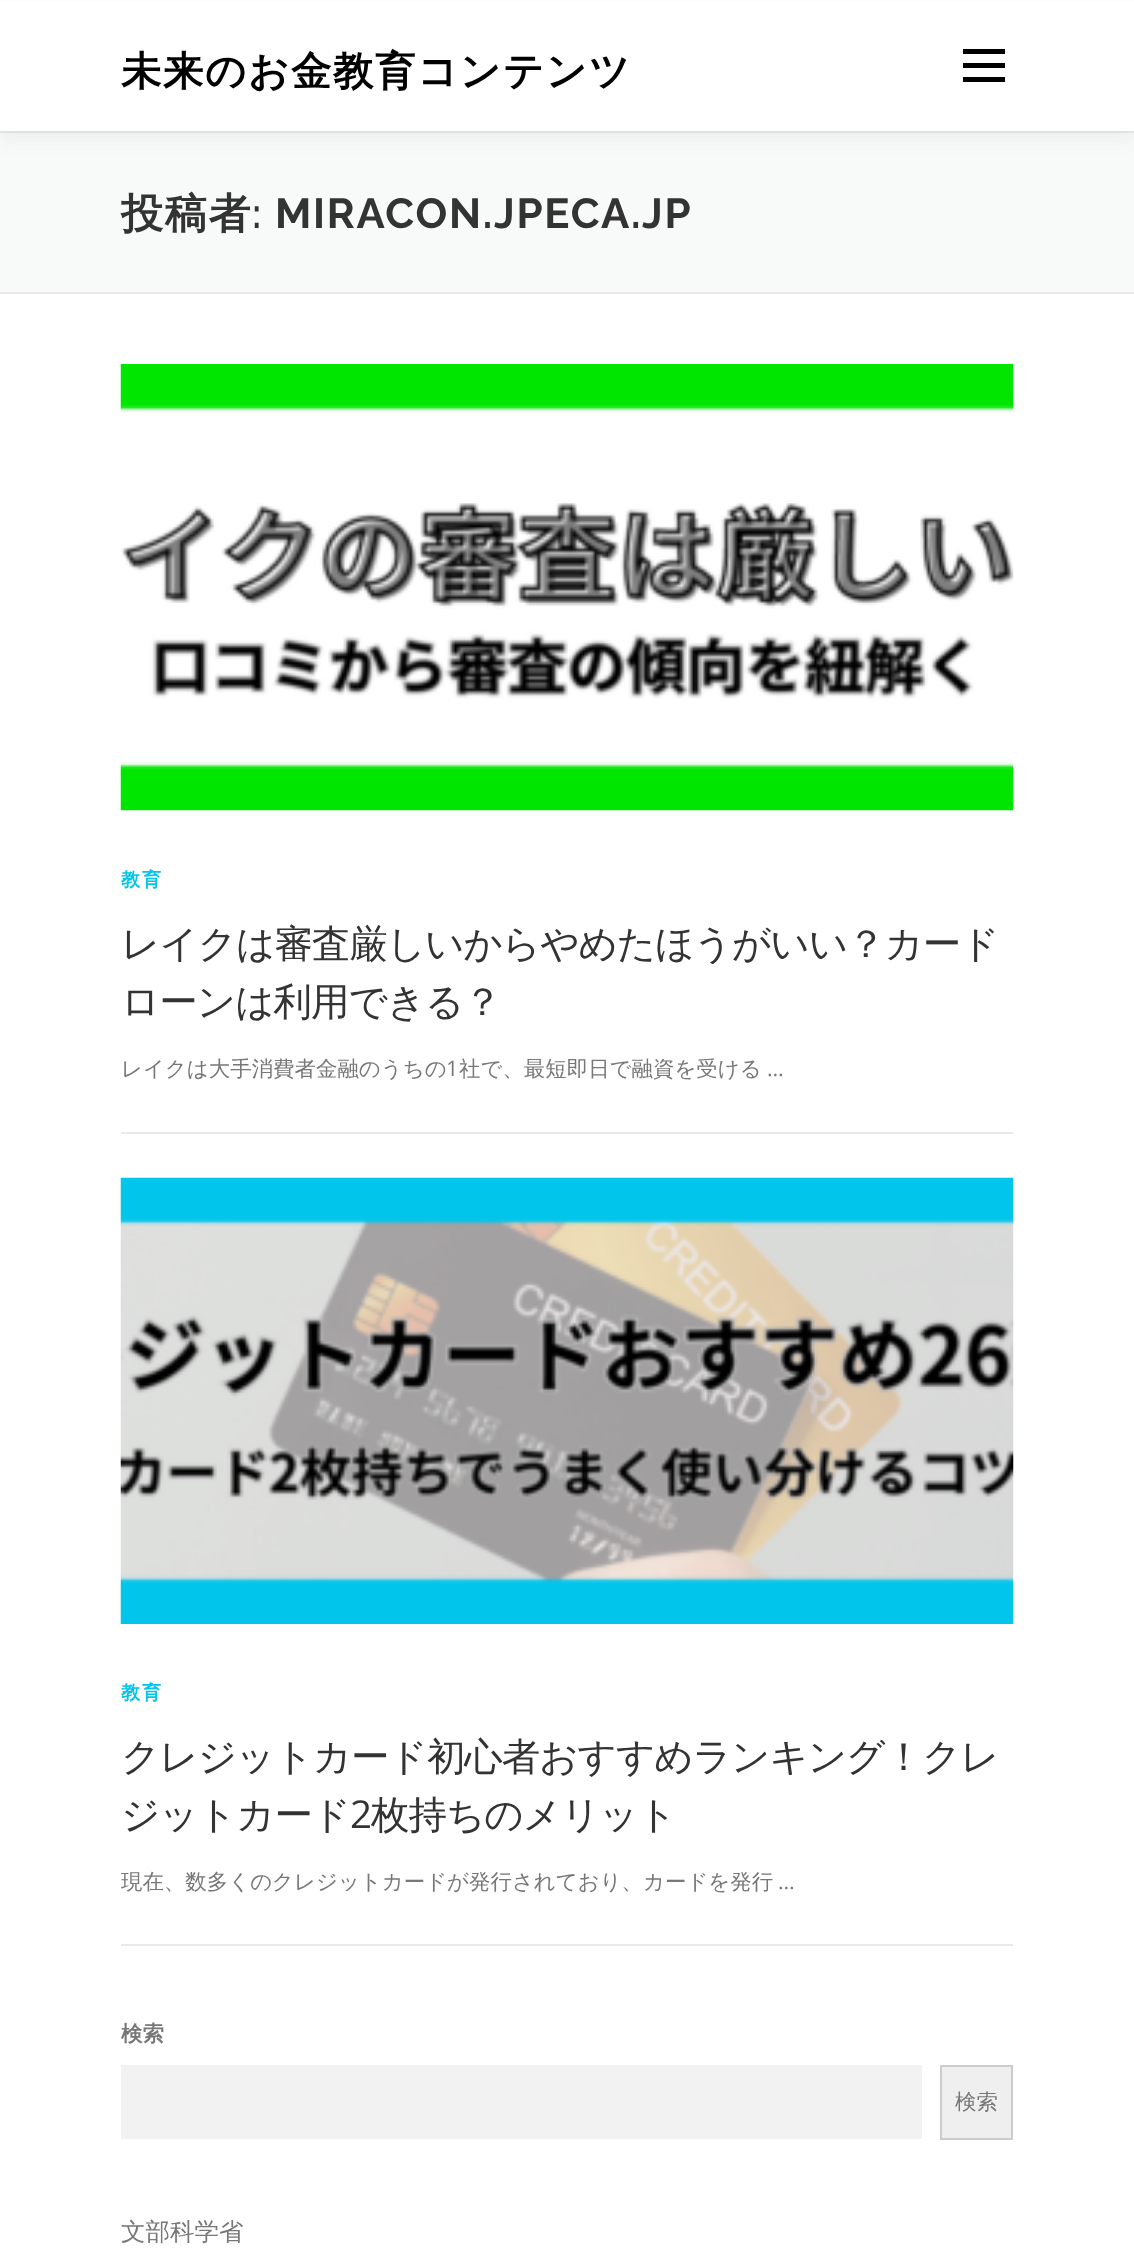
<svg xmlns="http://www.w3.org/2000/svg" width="1134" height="2250">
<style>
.a{font:bold 40.25px WenQuanYi Zen Hei;letter-spacing:1.75px;fill:#000}
.b{font:bold 42px WenQuanYi Zen Hei;letter-spacing:1.75px;fill:#333}
.c{font:600 42px Raleway;letter-spacing:1.75px;fill:#333}
.d{font:bold 42px Raleway;letter-spacing:1.75px;fill:#333}
.e{font:bold 19px WenQuanYi Zen Hei;letter-spacing:2px;fill:#03c4eb}
.f{font:500 38.5px WenQuanYi Zen Hei;letter-spacing:-1.05px;fill:#333}
.g{font:500 21.45px WenQuanYi Zen Hei;fill:#777}
.h{font:21.45px Open Sans;fill:#777}
.i{font:38.5px Open Sans;letter-spacing:-1.05px;fill:#333}
.j{font:bold 21.45px WenQuanYi Zen Hei;fill:#777}
.k{font:500 24.5px WenQuanYi Zen Hei;fill:#777}
</style>
<rect width="100%" height="100%" fill="#fff"/>
<path fill="#f8f9f9" d="M0 133h1134v159H0z"/>
<path fill="#e9e9e9" d="M0 131h1134v2H0z"/>
<path fill="#3232320f" filter="blur(9px)" d="M0 9h1134v131H0z"/>
<path fill="#fff" d="M0 2h1134v129H0z"/>
<path fill="#000" d="M963 63h42v5H963z"/>
<path fill="#000" d="M963 49h42v5H963z"/>
<path fill="#000" d="M963 77h42v5H963z"/>
<path fill="#e9e9e9" d="M0 292h1134v2H0z"/>
<image href="1.png" x="120" y="364" width="894" height="447"/>
<path fill="#e9e9e9" d="M121 1132h892v2H121z"/>
<path fill="#e9e9e9" d="M121 1944h892v2H121z"/>
<image href="2.png" x="120" y="1177" width="894" height="447"/>
<path fill="#f2f2f2" d="M121 2065h801v74H121z"/>
<path fill="#efefef" stroke="#ccc" stroke-width="2" d="M941 2066h71v73H941z"/>
<text class="a" x="121" y="85">未来のお金教育コンテンツ</text>
<text class="b" x="121" y="228">投稿者</text>
<text class="c" x="252" y="228">:</text>
<text class="d" x="275" y="228">MIRACON.JPECA.JP</text>
<text class="e" x="121" y="886">教育</text>
<text class="f" x="121" y="957">レイクは審査厳しいからやめたほうがいい？カード</text>
<text class="f" x="121" y="1015">ローンは利用できる？</text>
<text class="g" x="121" y="1076">レイクは大手消費者金融のうちの</text>
<text class="h" x="446" y="1076">1</text>
<text class="g" x="459" y="1076">社で、最短即日で融資を受ける</text>
<text class="h" x="767" y="1076">…</text>
<text class="e" x="121" y="1699">教育</text>
<text class="f" x="121" y="1770">クレジットカード初心者おすすめランキング！クレ</text>
<text class="f" x="121" y="1828">ジットカード</text>
<text class="i" x="350" y="1828">2</text>
<text class="f" x="371" y="1828">枚持ちのメリット</text>
<text class="g" x="121" y="1889">現在、数多くのクレジットカードが発行されており、カードを発行</text>
<text class="h" x="778" y="1889">…</text>
<text class="j" x="121" y="2041">検索</text>
<text class="g" x="955" y="2109">検索</text>
<text class="k" x="121" y="2240">文部科学省</text>
</svg>
